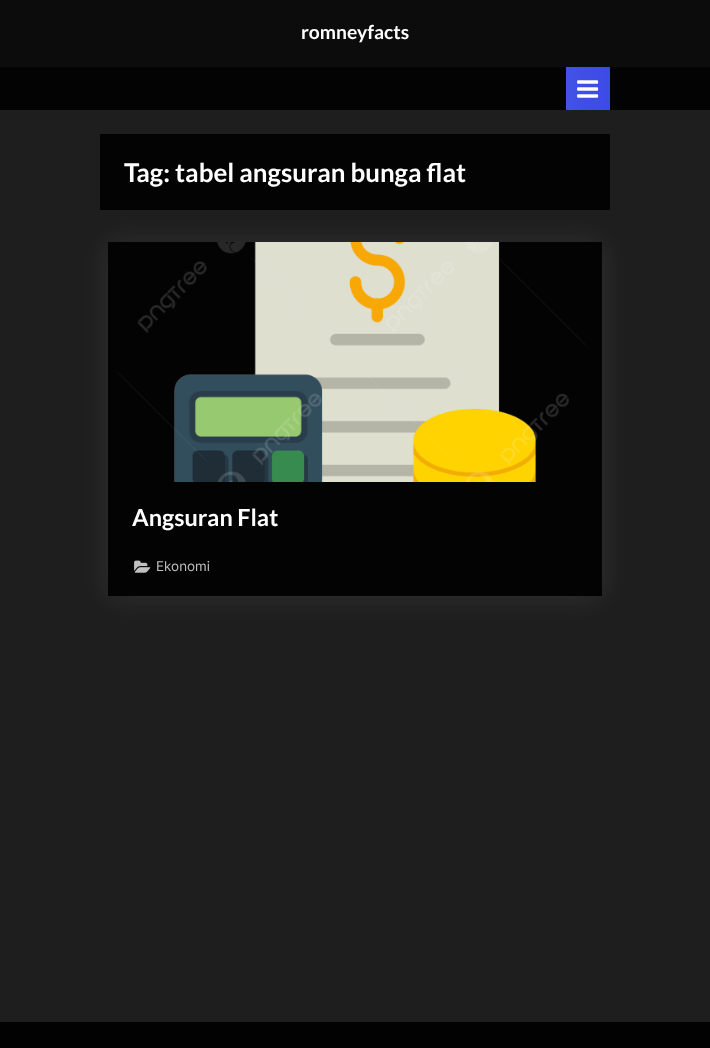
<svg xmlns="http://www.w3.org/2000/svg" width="710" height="1048">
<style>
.a{font:bold 19.25px Lato;fill:#fff}
.b{font:bold 25.9px Lato;fill:#fff}
.c{font:bold 23.5px Lato;fill:#fff}
.d{font:13.5px Inter;fill:#c0c0c0}
</style>
<defs>
<linearGradient id="g1" gradientUnits="userSpaceOnUse" x1="488" y1="89" x2="568" y2="89"><stop offset="0" stop-color="#4252e6"/><stop offset="0.51" stop-color="#3b4be5"/><stop offset="1" stop-color="#4252e6"/></linearGradient>
<linearGradient id="g2" gradientUnits="userSpaceOnUse" x1="568" y1="89" x2="648" y2="89"><stop offset="0" stop-color="#4252e6"/><stop offset="0.51" stop-color="#3b4be5"/><stop offset="1" stop-color="#4252e6"/></linearGradient>
</defs>
<rect width="100%" height="100%" fill="#1e1e1e"/>
<path fill="#0c0c0c" d="M0 0h710v67H0z"/>
<path fill="#030303" d="M0 67h710v43H0z"/>
<path fill="url(#g1)" d="M566 67h2v43H566z"/>
<path fill="url(#g2)" d="M568 67h42v43H568z"/>
<image href="1.png" x="577" y="80" width="22" height="18"/>
<path fill="#030303" d="M100 134h510v76H100z"/>
<path fill="#ffffff17" filter="blur(15px)" d="M108 243h494v354H108z"/>
<path fill="#030303" d="M108 242h494v354H108z"/>
<image href="2.png" x="116" y="242" width="473" height="240"/>
<image href="3.png" x="134" y="560" width="17" height="13"/>
<path fill="#020202" d="M0 1022h710v26H0z"/>
<text class="a" x="301" y="39">romneyfacts</text>
<text class="b" x="124" y="182">Tag: tabel angsuran bunga flat</text>
<text class="c" x="132" y="526">Angsuran Flat</text>
<text class="d" x="156" y="571">Ekonomi</text>
</svg>
